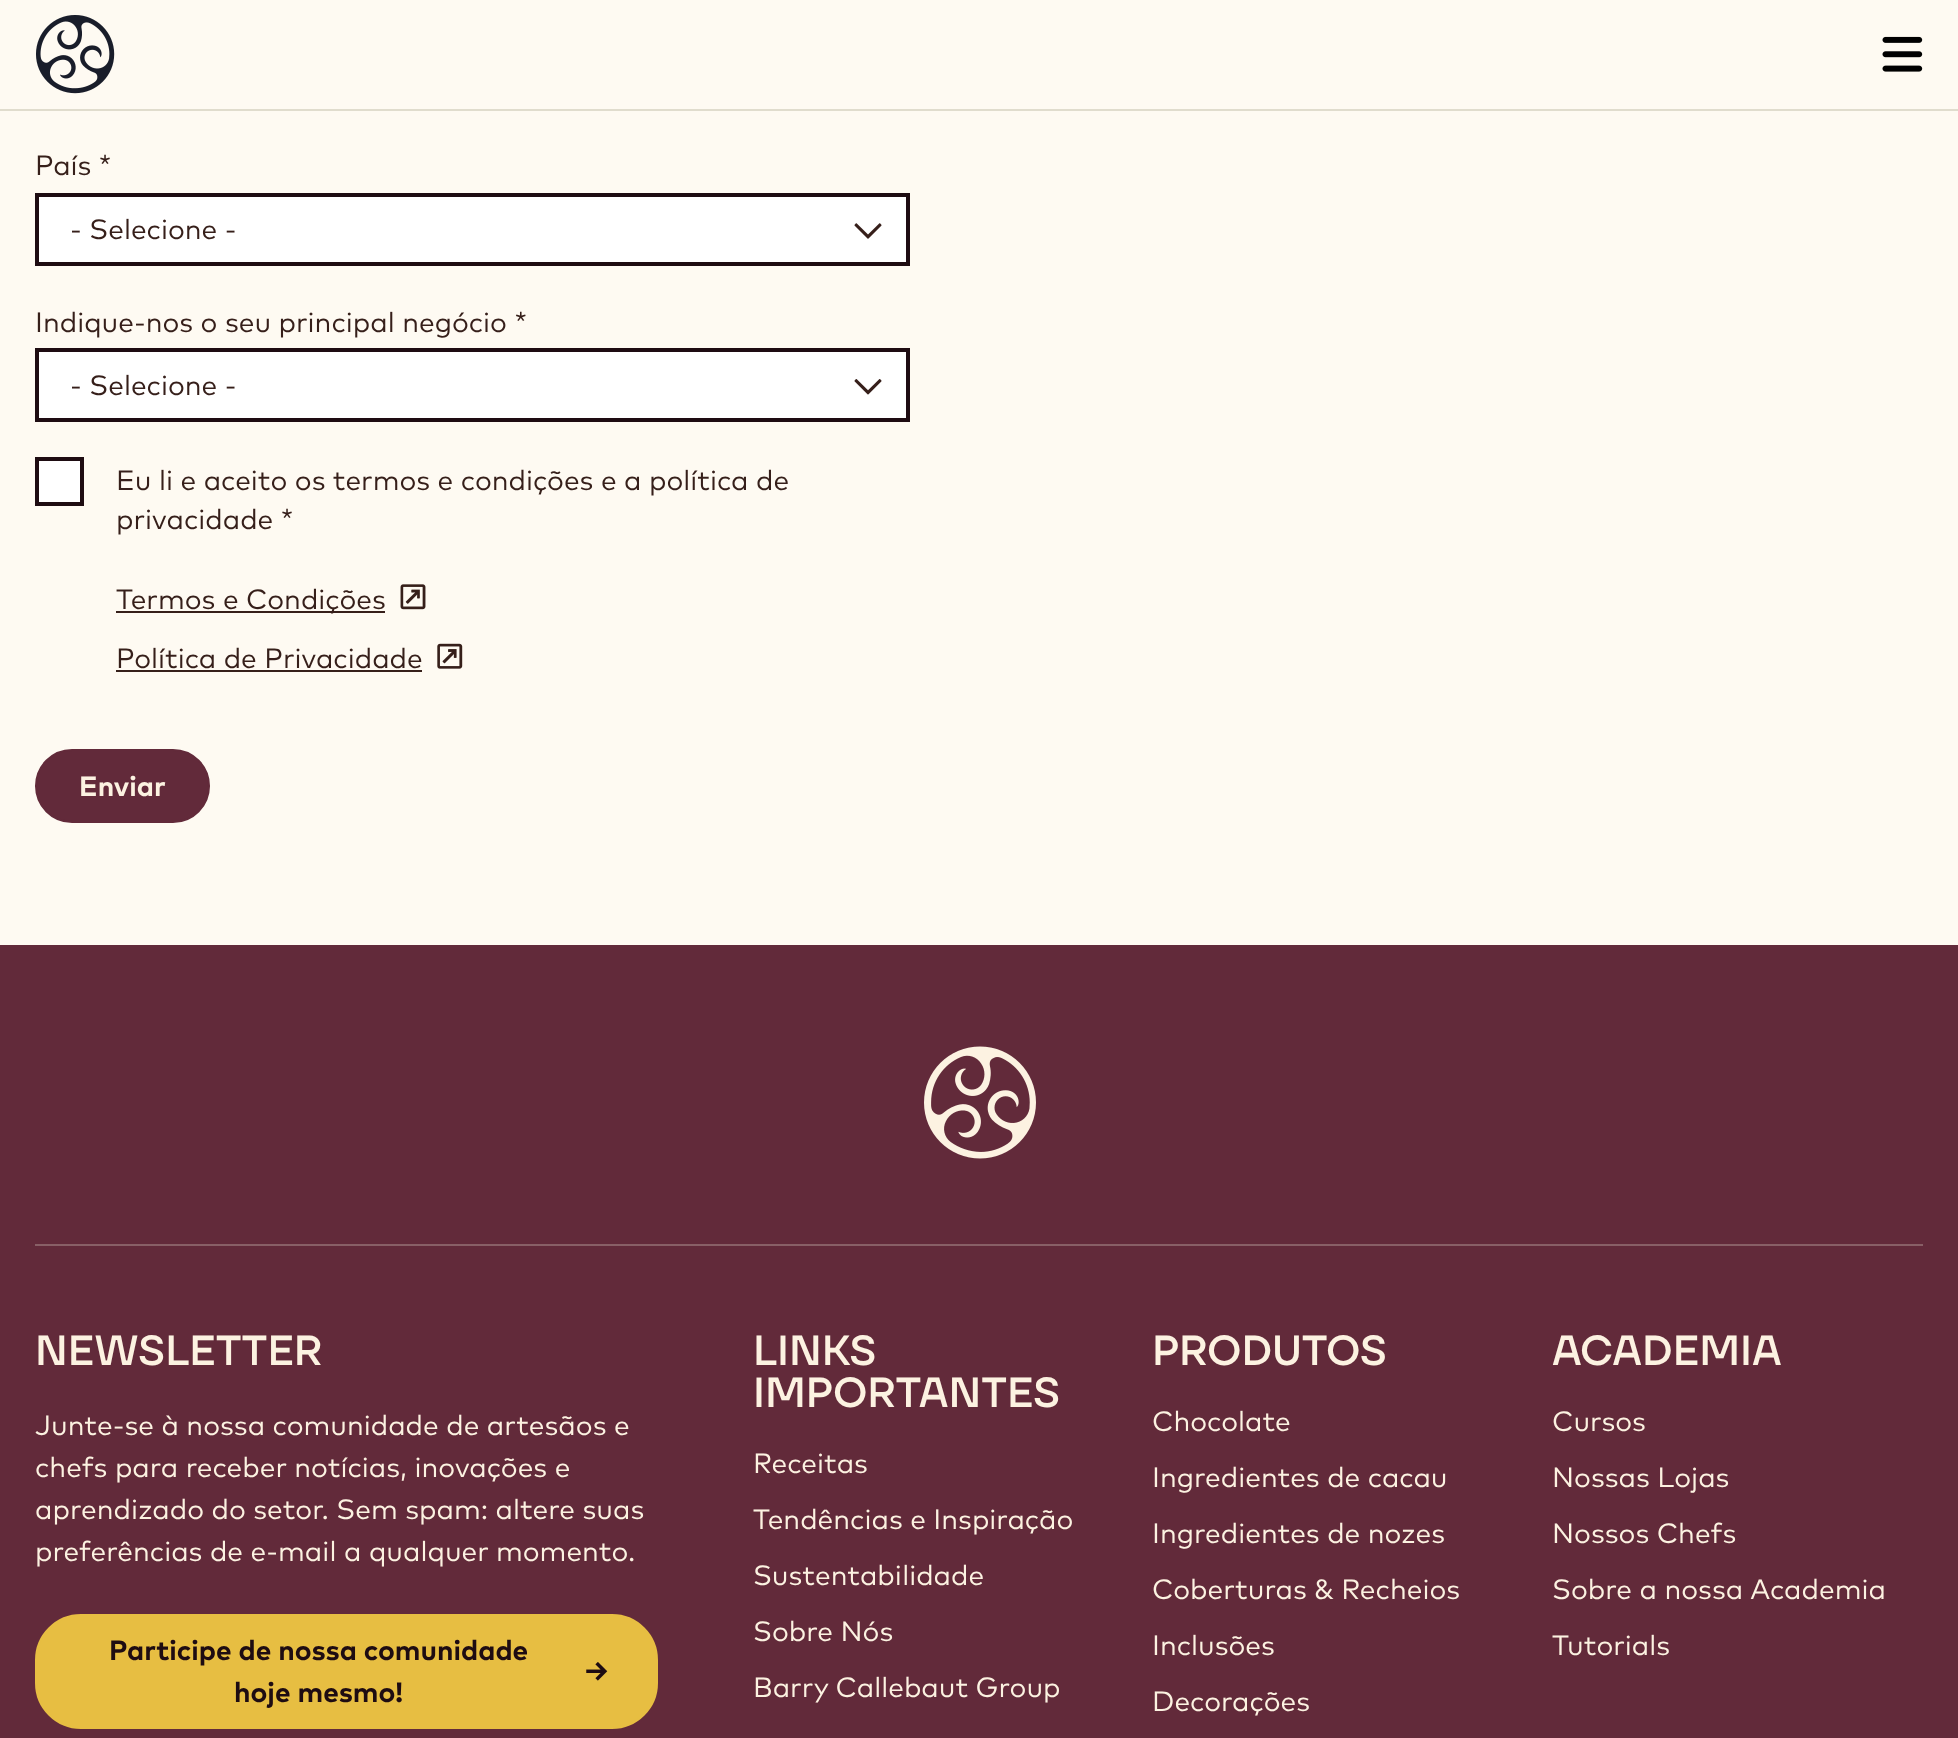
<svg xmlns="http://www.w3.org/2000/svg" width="1958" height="1738">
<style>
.a{font:28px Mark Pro;fill:#361f1a}
.b{font:bold 28px Mark Pro;fill:#fcf2e1}
.c{font:500 42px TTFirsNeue;fill:#fcf2e1}
.d{font:28px Mark Pro;fill:#fcf2e1}
.e{font:bold 28px Mark Pro;fill:#1e0c12}
</style>
<rect width="100%" height="100%" fill="#fefaf2"/>
<path fill="#e0dccd" d="M0 109h1958v2H0z"/>
<image href="1.png" x="36" y="15" width="79" height="79"/>
<image href="2.png" x="1882" y="36" width="41" height="36"/>
<path fill="#fff" stroke="#1e0c12" stroke-width="4" d="M37 195h871v69H37z"/>
<image href="3.png" x="854" y="223" width="28" height="16"/>
<path fill="#fff" stroke="#1e0c12" stroke-width="4" d="M37 350h871v70H37z"/>
<image href="4.png" x="854" y="379" width="28" height="16"/>
<path fill="#fff" stroke="#1e0c12" stroke-width="4" d="M37 459h45v45H37z"/>
<path fill="#361f1a" d="M116 611h269v2H116z"/>
<image href="5.png" x="400" y="584" width="26" height="26"/>
<path fill="#361f1a" d="M116 670h306v2H116z"/>
<image href="6.png" x="437" y="643" width="26" height="26"/>
<rect fill="#622a3a" stroke="#622a3a" stroke-width="2" x="36" y="750" width="173" height="72" rx="36"/>
<path fill="#622a3a" d="M0 945h1958v793H0z"/>
<image href="7.png" x="924" y="1046" width="112" height="113"/>
<path fill="#885f66" d="M35 1244h1888v2H35z"/>
<rect fill="#e7be42" stroke="#e7be42" stroke-width="2" x="36" y="1615" width="621" height="113" rx="45"/>
<image href="8.png" x="586" y="1662" width="22" height="19"/>
<text class="a" x="35" y="175">País *</text>
<text class="a" x="70" y="239">- Selecione -</text>
<text class="a" x="35" y="332">Indique-nos o seu principal negócio *</text>
<text class="a" x="70" y="395">- Selecione -</text>
<text class="a" x="116" y="490">Eu li e aceito os termos e condições e a política de</text>
<text class="a" x="116" y="529">privacidade *</text>
<text class="a" x="116" y="609">Termos e Condições</text>
<text class="a" x="116" y="668">Política de Privacidade</text>
<text class="b" x="79" y="796">Enviar</text>
<text class="c" x="35" y="1365">NEWSLETTER</text>
<text class="d" x="35" y="1435">Junte-se à nossa comunidade de artesãos e</text>
<text class="d" x="35" y="1477">chefs para receber notícias, inovações e</text>
<text class="d" x="35" y="1519">aprendizado do setor. Sem spam: altere suas</text>
<text class="d" x="35" y="1561">preferências de e-mail a qualquer momento.</text>
<text class="e" x="109" y="1660">Participe de nossa comunidade</text>
<text class="e" x="234" y="1702">hoje mesmo!</text>
<text class="c" x="753" y="1365">LINKS</text>
<text class="c" x="753" y="1407">IMPORTANTES</text>
<text class="d" x="753" y="1473">Receitas</text>
<text class="d" x="753" y="1529">Tendências e Inspiração</text>
<text class="d" x="753" y="1585">Sustentabilidade</text>
<text class="d" x="753" y="1641">Sobre Nós</text>
<text class="d" x="753" y="1697">Barry Callebaut Group</text>
<text class="c" x="1152" y="1365">PRODUTOS</text>
<text class="d" x="1152" y="1431">Chocolate</text>
<text class="d" x="1152" y="1487">Ingredientes de cacau</text>
<text class="d" x="1152" y="1543">Ingredientes de nozes</text>
<text class="d" x="1152" y="1599">Coberturas &amp; Recheios</text>
<text class="d" x="1152" y="1655">Inclusões</text>
<text class="d" x="1152" y="1711">Decorações</text>
<text class="c" x="1552" y="1365">ACADEMIA</text>
<text class="d" x="1552" y="1431">Cursos</text>
<text class="d" x="1552" y="1487">Nossas Lojas</text>
<text class="d" x="1552" y="1543">Nossos Chefs</text>
<text class="d" x="1552" y="1599">Sobre a nossa Academia</text>
<text class="d" x="1552" y="1655">Tutorials</text>
</svg>
